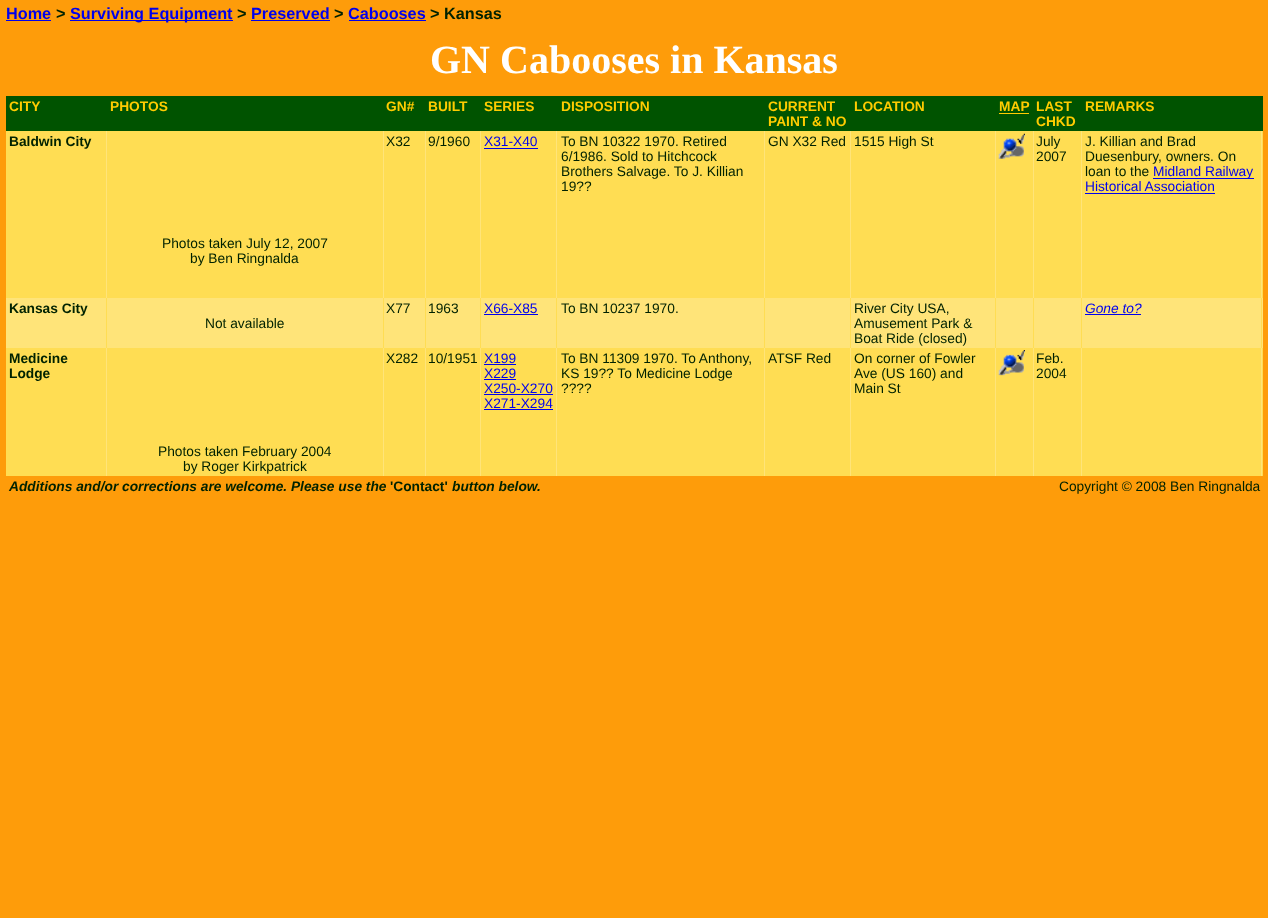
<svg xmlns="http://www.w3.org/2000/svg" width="1268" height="918">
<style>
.a{font:bold 16.25px Liberation Sans;fill:#00e}
.b{font:bold 16.25px Liberation Sans;fill:#020}
.c{font:bold 40px Liberation Serif;fill:#fff}
.d{font:bold 13.75px Liberation Sans;fill:#fc0}
.e{font:bold 13.75px Liberation Sans;fill:#020}
.f{font:13.75px Liberation Sans;fill:#020}
.g{font:13.75px Liberation Sans;fill:#00e}
.h{font:italic 13.75px Liberation Sans;fill:#00e}
.i{font:italic bold 13.75px Liberation Sans;fill:#020}
</style>
<rect width="100%" height="100%" fill="#fe9c0a"/>
<path fill="#00e" d="M6 20h45v1H6z"/>
<path fill="#00e" d="M70 20h163v1H70z"/>
<path fill="#00e" d="M251 20h79v1H251z"/>
<path fill="#00e" d="M349 20h77v1H349z"/>
<path fill="#005300" d="M6 96h1257v35H6z"/>
<path fill="#fc0" d="M999 113h30v1H999z"/>
<path fill="#ffdd53" d="M6 131h102v167H6z"/>
<path fill="#ffe479" d="M106 131h1v167H106z"/>
<path fill="#ffdd53" d="M108 131h275v167H108z"/>
<path fill="#ffe479" d="M383 131h1v167H383z"/>
<path fill="#ffdd53" d="M384 131h41v167H384z"/>
<path fill="#ffe479" d="M425 131h1v167H425z"/>
<path fill="#ffdd53" d="M426 131h54v167H426z"/>
<path fill="#ffe479" d="M480 131h1v167H480z"/>
<path fill="#ffdd53" d="M481 131h283v167H481z"/>
<path fill="#ffe479" d="M556 131h1v167H556z"/>
<path fill="#00e" d="M484 148h54v1H484z"/>
<path fill="#ffe479" d="M764 131h1v167H764z"/>
<path fill="#ffdd53" d="M765 131h85v167H765z"/>
<path fill="#ffe479" d="M850 131h1v167H850z"/>
<path fill="#ffdd53" d="M851 131h144v167H851z"/>
<path fill="#ffe479" d="M995 131h1v167H995z"/>
<path fill="#ffdd53" d="M996 131h37v167H996z"/>
<path fill="#ffe479" d="M1033 131h1v167H1033z"/>
<image href="1.png" x="998" y="133" width="27" height="26"/>
<path fill="#ffdd53" d="M1034 131h229v167H1034z"/>
<path fill="#ffe479" d="M1081 131h1v167H1081z"/>
<path fill="#ffe479" d="M1261 131h1v167H1261z"/>
<path fill="#00e" d="M1153 178h101v1H1153z"/>
<path fill="#00e" d="M1085 193h130v1H1085z"/>
<path fill="#ffe479" d="M6 298h377v50H6z"/>
<path fill="#ffdd53" d="M106 298h1v50H106z"/>
<path fill="#ffe479" d="M384 298h41v50H384z"/>
<path fill="#ffdd53" d="M425 298h1v50H425z"/>
<path fill="#ffe479" d="M426 298h54v50H426z"/>
<path fill="#ffdd53" d="M480 298h1v50H480z"/>
<path fill="#ffe479" d="M481 298h283v50H481z"/>
<path fill="#ffdd53" d="M556 298h1v50H556z"/>
<path fill="#00e" d="M484 314h54v1H484z"/>
<path fill="#ffdd53" d="M764 298h1v50H764z"/>
<path fill="#ffe479" d="M765 298h85v50H765z"/>
<path fill="#ffdd53" d="M850 298h1v50H850z"/>
<path fill="#ffe479" d="M851 298h144v50H851z"/>
<path fill="#ffdd53" d="M995 298h1v50H995z"/>
<path fill="#ffe479" d="M996 298h37v50H996z"/>
<path fill="#ffdd53" d="M1033 298h1v50H1033z"/>
<path fill="#ffe479" d="M1034 298h229v50H1034z"/>
<path fill="#ffdd53" d="M1081 298h1v50H1081z"/>
<path fill="#ffdd53" d="M1261 298h1v50H1261z"/>
<path fill="#00e" d="M1085 314h56v1H1085z"/>
<path fill="#ffdd53" d="M383 298h1v50H383z"/>
<path fill="#ffdd53" d="M6 348h102v128H6z"/>
<path fill="#ffe479" d="M106 348h1v128H106z"/>
<path fill="#ffdd53" d="M108 348h275v128H108z"/>
<path fill="#ffe479" d="M383 348h1v128H383z"/>
<path fill="#ffdd53" d="M384 348h41v128H384z"/>
<path fill="#ffe479" d="M425 348h1v128H425z"/>
<path fill="#ffdd53" d="M426 348h54v128H426z"/>
<path fill="#ffe479" d="M480 348h1v128H480z"/>
<path fill="#ffdd53" d="M481 348h283v128H481z"/>
<path fill="#ffe479" d="M556 348h1v128H556z"/>
<path fill="#00e" d="M484 364h32v1H484z"/>
<path fill="#00e" d="M484 379h32v1H484z"/>
<path fill="#00e" d="M484 394h69v1H484z"/>
<path fill="#00e" d="M484 409h69v1H484z"/>
<path fill="#ffe479" d="M764 348h1v128H764z"/>
<path fill="#ffdd53" d="M765 348h85v128H765z"/>
<path fill="#ffe479" d="M850 348h1v128H850z"/>
<path fill="#ffdd53" d="M851 348h144v128H851z"/>
<path fill="#ffe479" d="M995 348h1v128H995z"/>
<path fill="#ffdd53" d="M996 348h37v128H996z"/>
<path fill="#ffe479" d="M1033 348h1v128H1033z"/>
<image href="2.png" x="998" y="350" width="27" height="26"/>
<path fill="#ffdd53" d="M1034 348h229v128H1034z"/>
<path fill="#ffe479" d="M1081 348h1v128H1081z"/>
<path fill="#ffe479" d="M1261 348h1v128H1261z"/>
<text class="a" x="6" y="19">Home</text>
<text class="b" x="56" y="19">&gt;</text>
<text class="a" x="70" y="19">Surviving Equipment</text>
<text class="b" x="237" y="19">&gt;</text>
<text class="a" x="251" y="19">Preserved</text>
<text class="b" x="334" y="19">&gt;</text>
<text class="a" x="348" y="19">Cabooses</text>
<text class="b" x="430" y="19">&gt; Kansas</text>
<text class="c" x="430" y="73">GN Cabooses in Kansas</text>
<text class="d" x="9" y="111">CITY</text>
<text class="d" x="110" y="111">PHOTOS</text>
<text class="d" x="386" y="111">GN#</text>
<text class="d" x="428" y="111">BUILT</text>
<text class="d" x="484" y="111">SERIES</text>
<text class="d" x="561" y="111">DISPOSITION</text>
<text class="d" x="768" y="111">CURRENT</text>
<text class="d" x="768" y="126">PAINT &amp; NO</text>
<text class="d" x="854" y="111">LOCATION</text>
<text class="d" x="999" y="111">MAP</text>
<text class="d" x="1036" y="111">LAST</text>
<text class="d" x="1036" y="126">CHKD</text>
<text class="d" x="1085" y="111">REMARKS</text>
<text class="e" x="9" y="146">Baldwin City</text>
<text class="f" x="386" y="146">X32</text>
<text class="f" x="428" y="146">9/1960</text>
<text class="g" x="484" y="146">X31-X40</text>
<text class="f" x="561" y="146">To BN 10322 1970. Retired</text>
<text class="f" x="561" y="161">6/1986. Sold to Hitchcock</text>
<text class="f" x="561" y="176">Brothers Salvage. To J. Killian</text>
<text class="f" x="561" y="191">19??</text>
<text class="f" x="768" y="146">GN X32 Red</text>
<text class="f" x="854" y="146">1515 High St</text>
<text class="f" x="1036" y="146">July</text>
<text class="f" x="1036" y="161">2007</text>
<text class="f" x="1085" y="146">J. Killian and Brad</text>
<text class="f" x="1085" y="161">Duesenbury, owners. On</text>
<text class="f" x="1085" y="176">loan to the</text>
<text class="g" x="1153" y="176">Midland Railway</text>
<text class="g" x="1085" y="191">Historical Association</text>
<text class="f" x="162" y="248">Photos taken July 12, 2007</text>
<text class="f" x="190" y="263">by Ben Ringnalda</text>
<text class="e" x="9" y="313">Kansas City</text>
<text class="f" x="386" y="313">X77</text>
<text class="f" x="428" y="313">1963</text>
<text class="g" x="484" y="313">X66-X85</text>
<text class="f" x="561" y="313">To BN 10237 1970.</text>
<text class="f" x="854" y="313">River City USA,</text>
<text class="f" x="854" y="328">Amusement Park &amp;</text>
<text class="f" x="854" y="343">Boat Ride (closed)</text>
<text class="h" x="1085" y="313">Gone to?</text>
<text class="f" x="205" y="328">Not available</text>
<text class="e" x="9" y="363">Medicine</text>
<text class="e" x="9" y="378">Lodge</text>
<text class="f" x="386" y="363">X282</text>
<text class="f" x="428" y="363">10/1951</text>
<text class="g" x="484" y="363">X199</text>
<text class="g" x="484" y="378">X229</text>
<text class="g" x="484" y="393">X250-X270</text>
<text class="g" x="484" y="408">X271-X294</text>
<text class="f" x="561" y="363">To BN 11309 1970. To Anthony,</text>
<text class="f" x="561" y="378">KS 19?? To Medicine Lodge</text>
<text class="f" x="561" y="393">????</text>
<text class="f" x="768" y="363">ATSF Red</text>
<text class="f" x="854" y="363">On corner of Fowler</text>
<text class="f" x="854" y="378">Ave (US 160) and</text>
<text class="f" x="854" y="393">Main St</text>
<text class="f" x="1036" y="363">Feb.</text>
<text class="f" x="1036" y="378">2004</text>
<text class="f" x="158" y="456">Photos taken February 2004</text>
<text class="f" x="183" y="471">by Roger Kirkpatrick</text>
<text class="i" x="9" y="491">Additions and/or corrections are welcome. Please use the</text>
<text class="e" x="390" y="491">'Contact'</text>
<text class="i" x="452" y="491">button below.</text>
<text class="f" x="1059" y="491">Copyright © 2008 Ben Ringnalda</text>
</svg>
